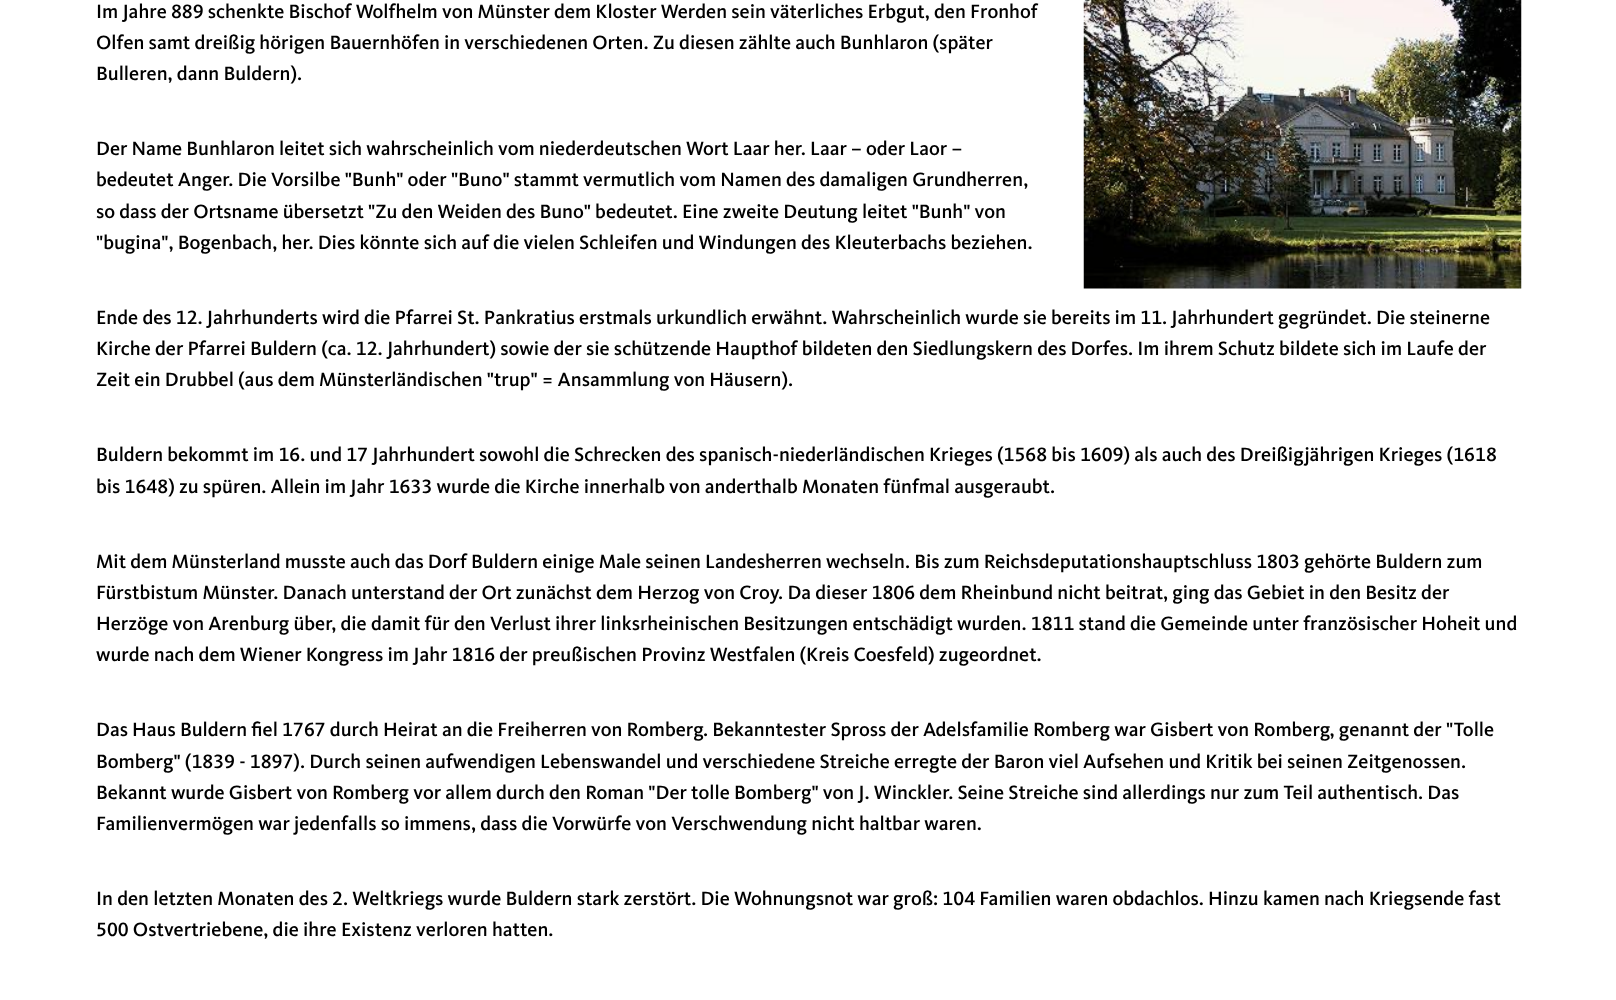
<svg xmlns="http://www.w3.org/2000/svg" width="1616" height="1000">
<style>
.a{font:500 20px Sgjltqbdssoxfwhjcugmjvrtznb;fill:#000}
</style>
<rect width="100%" height="100%" fill="#fff"/>
<image href="1.png" x="1083" y="0" width="439" height="289"/>
<text class="a" x="96" y="18">Im Jahre 889 schenkte Bischof Wolfhelm von Münster dem Kloster Werden sein väterliches Erbgut, den Fronhof</text>
<text class="a" x="96" y="49">Olfen samt dreißig hörigen Bauernhöfen in verschiedenen Orten. Zu diesen zählte auch Bunhlaron (später</text>
<text class="a" x="96" y="80">Bulleren, dann Buldern).</text>
<text class="a" x="96" y="155">Der Name Bunhlaron leitet sich wahrscheinlich vom niederdeutschen Wort Laar her. Laar – oder Laor –</text>
<text class="a" x="96" y="186">bedeutet Anger. Die Vorsilbe "Bunh" oder "Buno" stammt vermutlich vom Namen des damaligen Grundherren,</text>
<text class="a" x="96" y="218">so dass der Ortsname übersetzt "Zu den Weiden des Buno" bedeutet. Eine zweite Deutung leitet "Bunh" von</text>
<text class="a" x="96" y="249">"bugina", Bogenbach, her. Dies könnte sich auf die vielen Schleifen und Windungen des Kleuterbachs beziehen.</text>
<text class="a" x="96" y="324">Ende des 12. Jahrhunderts wird die Pfarrei St. Pankratius erstmals urkundlich erwähnt. Wahrscheinlich wurde sie bereits im 11. Jahrhundert gegründet. Die steinerne</text>
<text class="a" x="96" y="355">Kirche der Pfarrei Buldern (ca. 12. Jahrhundert) sowie der sie schützende Haupthof bildeten den Siedlungskern des Dorfes. Im ihrem Schutz bildete sich im Laufe der</text>
<text class="a" x="96" y="386">Zeit ein Drubbel (aus dem Münsterländischen "trup" = Ansammlung von Häusern).</text>
<text class="a" x="96" y="461">Buldern bekommt im 16. und 17 Jahrhundert sowohl die Schrecken des spanisch-niederländischen Krieges (1568 bis 1609) als auch des Dreißigjährigen Krieges (1618</text>
<text class="a" x="96" y="493">bis 1648) zu spüren. Allein im Jahr 1633 wurde die Kirche innerhalb von anderthalb Monaten fünfmal ausgeraubt.</text>
<text class="a" x="96" y="568">Mit dem Münsterland musste auch das Dorf Buldern einige Male seinen Landesherren wechseln. Bis zum Reichsdeputationshauptschluss 1803 gehörte Buldern zum</text>
<text class="a" x="96" y="599">Fürstbistum Münster. Danach unterstand der Ort zunächst dem Herzog von Croy. Da dieser 1806 dem Rheinbund nicht beitrat, ging das Gebiet in den Besitz der</text>
<text class="a" x="96" y="630">Herzöge von Arenburg über, die damit für den Verlust ihrer linksrheinischen Besitzungen entschädigt wurden. 1811 stand die Gemeinde unter französischer Hoheit und</text>
<text class="a" x="96" y="661">wurde nach dem Wiener Kongress im Jahr 1816 der preußischen Provinz Westfalen (Kreis Coesfeld) zugeordnet.</text>
<text class="a" x="96" y="736">Das Haus Buldern fiel 1767 durch Heirat an die Freiherren von Romberg. Bekanntester Spross der Adelsfamilie Romberg war Gisbert von Romberg, genannt der "Tolle</text>
<text class="a" x="96" y="768">Bomberg" (1839 - 1897). Durch seinen aufwendigen Lebenswandel und verschiedene Streiche erregte der Baron viel Aufsehen und Kritik bei seinen Zeitgenossen.</text>
<text class="a" x="96" y="799">Bekannt wurde Gisbert von Romberg vor allem durch den Roman "Der tolle Bomberg" von J. Winckler. Seine Streiche sind allerdings nur zum Teil authentisch. Das</text>
<text class="a" x="96" y="830">Familienvermögen war jedenfalls so immens, dass die Vorwürfe von Verschwendung nicht haltbar waren.</text>
<text class="a" x="96" y="905">In den letzten Monaten des 2. Weltkriegs wurde Buldern stark zerstört. Die Wohnungsnot war groß: 104 Familien waren obdachlos. Hinzu kamen nach Kriegsende fast</text>
<text class="a" x="96" y="936">500 Ostvertriebene, die ihre Existenz verloren hatten.</text>
</svg>
